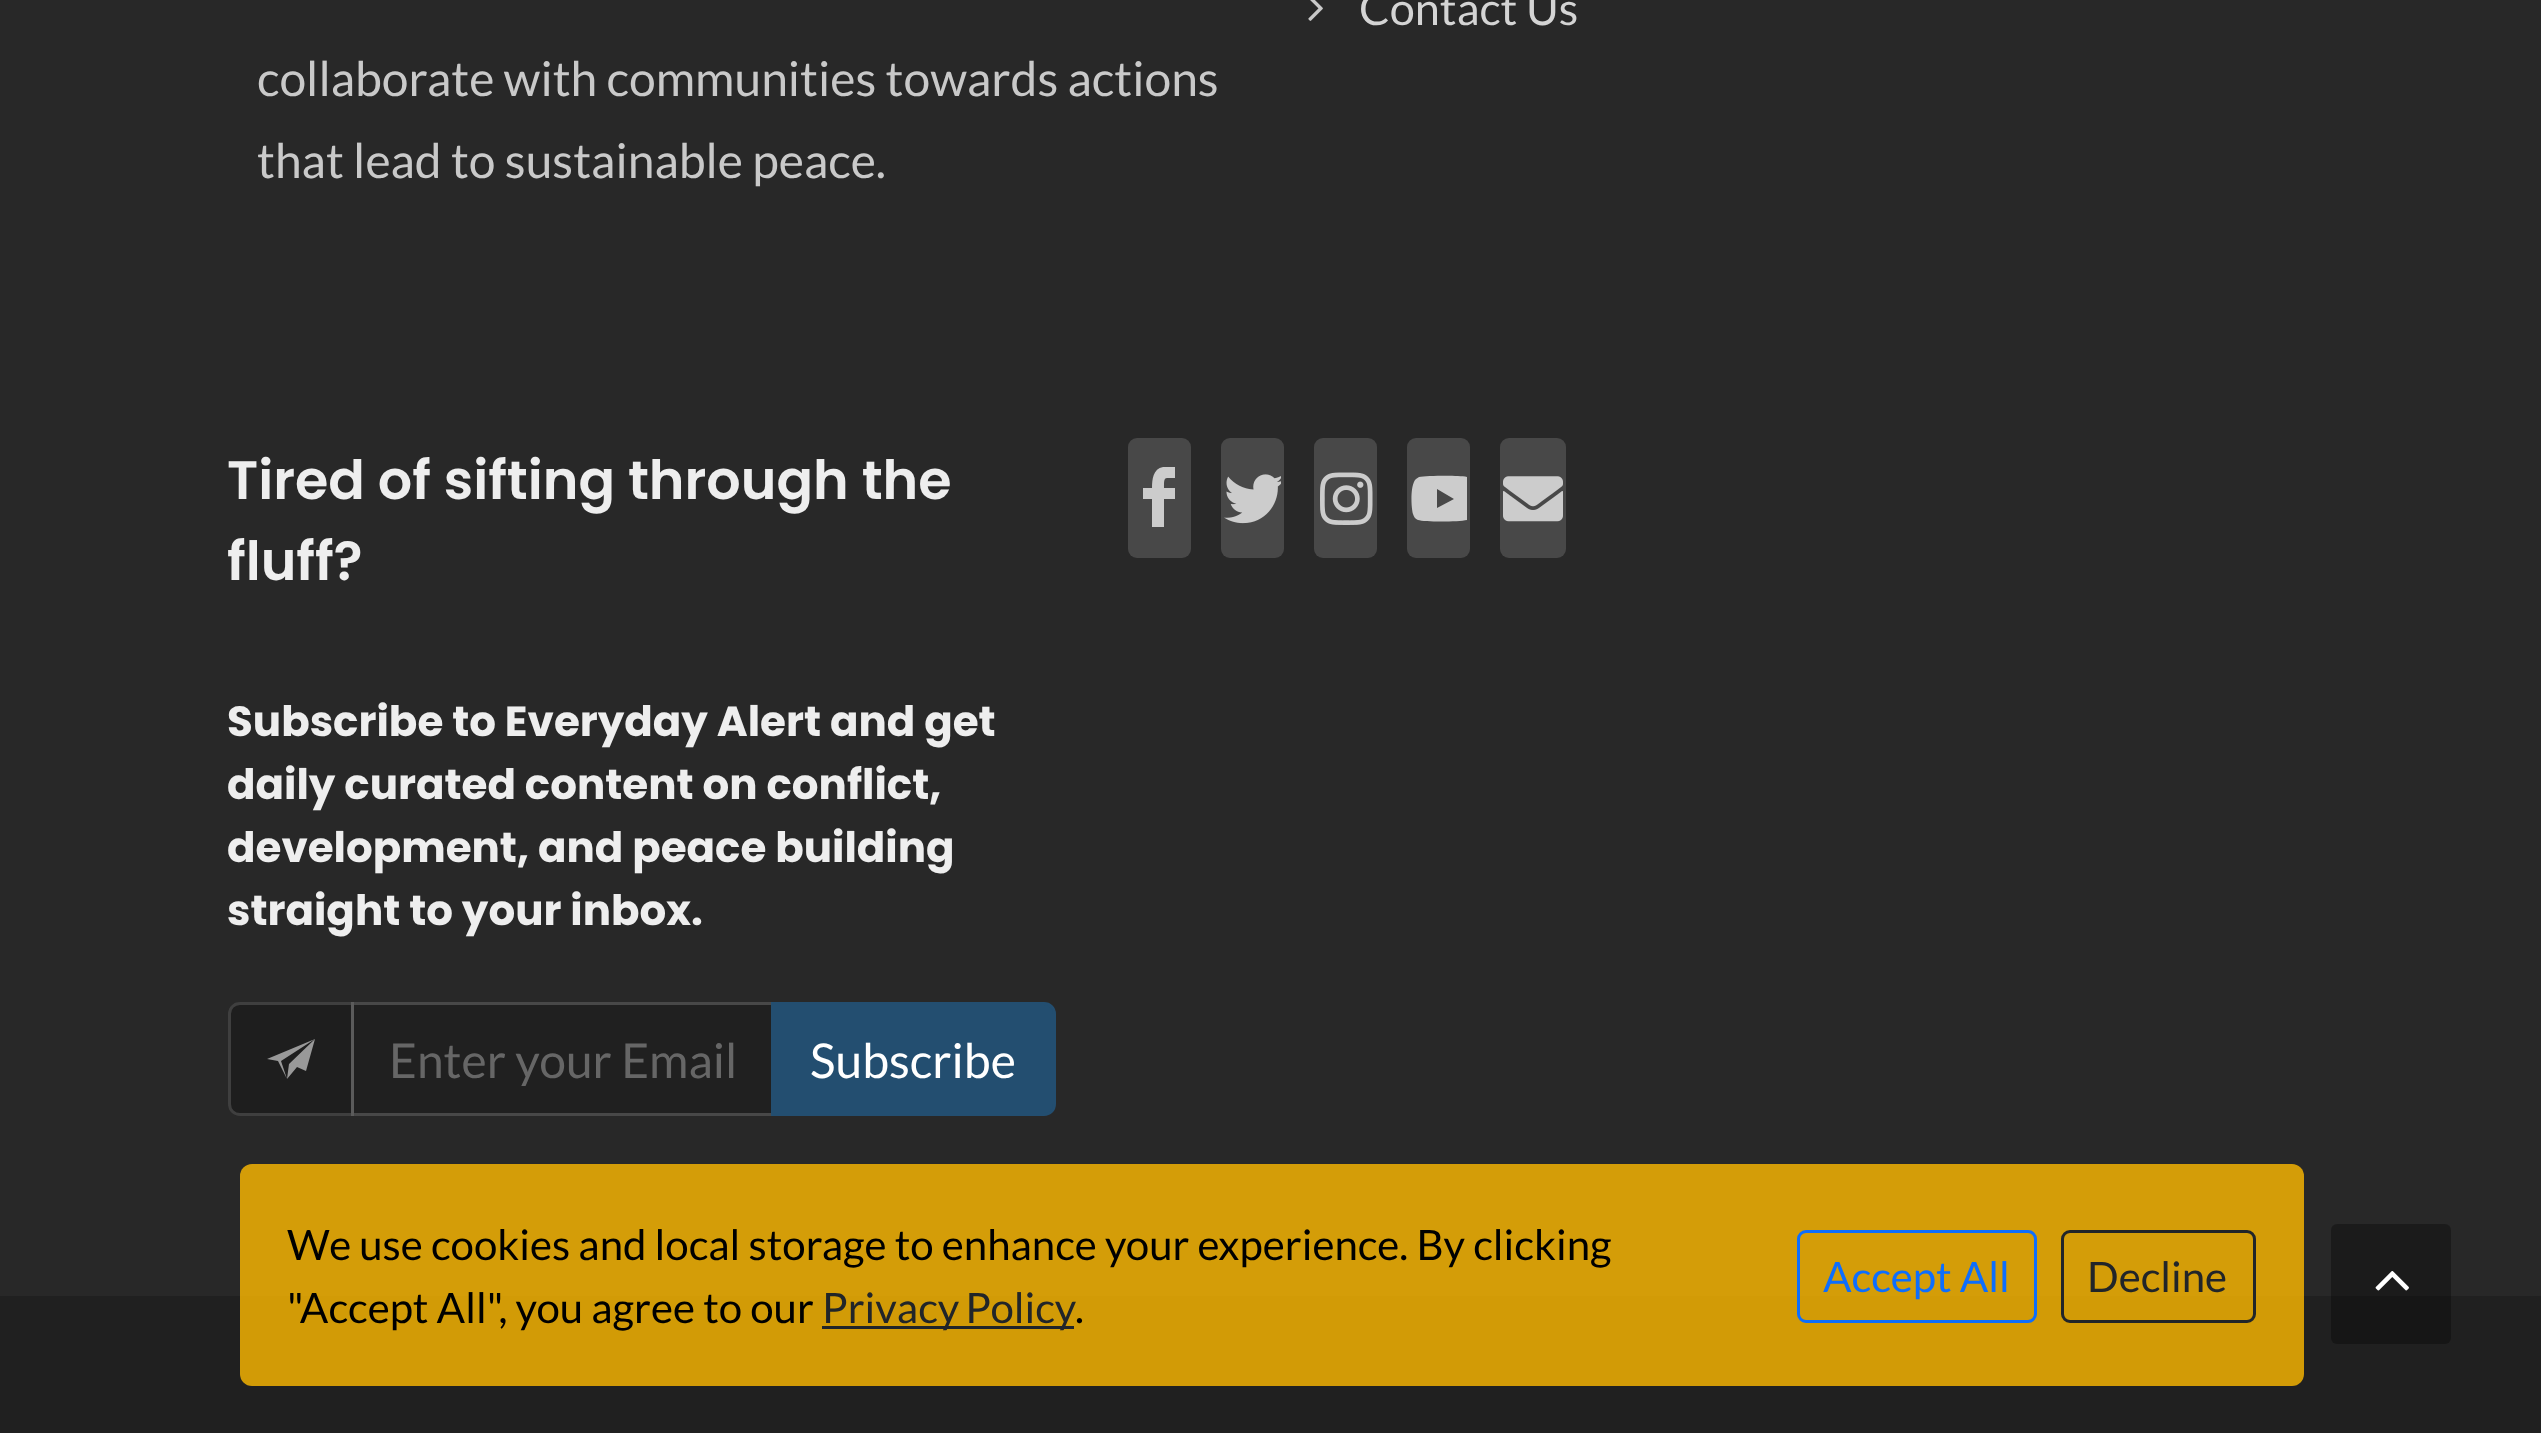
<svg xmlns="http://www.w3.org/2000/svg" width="2541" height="1433">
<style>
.a{font:45px Lato;fill:#d4d4d4}
.b{font:48px Lato;fill:#c9c9c9}
.c{font:600 54px Poppins;fill:#eee}
.d{font:bold 42px Poppins;fill:#eee}
.e{font:48px Lato;fill:#666}
.f{font:48px Lato;fill:#fff}
.g{font:42px Lato;fill:#000}
.h{font:42px Lato;fill:#212529}
.i{font:42px Lato;fill:#0d6efd}
</style>
<defs>
<clipPath id="clip1"><path d="M390 1029h345v57H390z"/></clipPath>
</defs>
<rect width="100%" height="100%" fill="#282828"/>
<image href="1.png" x="1308" y="0" width="15" height="21"/>
<path fill="#1e1e1e" d="M240 1002h114v114h-114c-6.5 0-12-5.5-12-12v-90c0-6.5 5.5-12 12-12z"/>
<path fill="none" stroke="#ffffff26" stroke-width="3" d="M240 1003.5h112.5v111h-112.5c-6 0-10.5-4.5-10.5-10.5v-90c0-6 4.5-10.5 10.5-10.5z"/>
<path fill="#999" d="M289 1064l-2 15l10-12l9 4l9-32zm26-25l-48 20l11 2l9 18l-6-18z"/>
<path fill="#202020" d="M354 1005h417v108H354z"/>
<path fill="none" stroke="#ffffff26" stroke-width="3" d="M352.5 1003.5h420v111H352.5z"/>
<path fill="#234e70" stroke="#234e70" stroke-width="3" d="M772.5 1003.5h271.5c6 0 10.5 4.5 10.5 10.5v90c0 6-4.5 10.5-10.5 10.5h-271.5z"/>
<rect fill="#484848" x="1128" y="438" width="63" height="120" rx="9"/>
<path fill="#ccc" d="M1143 499v-11h9c0-9 1-19 11-21h12v11c-11 0-11-2-11 10h11v11h-11v28h-12v-28z"/>
<rect fill="#484848" x="1221" y="438" width="63" height="120" rx="9"/>
<image href="2.png" x="1224" y="474" width="57" height="50"/>
<rect fill="#484848" x="1314" y="438" width="63" height="120" rx="9"/>
<image href="3.png" x="1320" y="472" width="53" height="53"/>
<rect fill="#484848" x="1407" y="438" width="63" height="120" rx="9"/>
<path fill="#ccc" fill-rule="evenodd" d="M1467 477v43c-9 2-43 2-49 0c-3-1-4-3-5-6c-2-6-3-30 3-35l3-2c7-1 37-2 48 0zm-30 31l17-9l-17-10z"/>
<rect fill="#484848" x="1500" y="438" width="66" height="120" rx="9"/>
<image href="4.png" x="1503" y="476" width="60" height="46"/>
<path fill="#202020" d="M0 1296h2541v137H0z"/>
<rect fill="#ffba00cc" x="240" y="1164" width="2064" height="222" rx="12"/>
<path fill="#212529" d="M822 1326h252v3H822z"/>
<rect fill="none" stroke="#0d6efd" stroke-width="3" x="1798.5" y="1231.5" width="237" height="90" rx="7.5"/>
<rect fill="none" stroke="#212529" stroke-width="3" x="2062.5" y="1231.5" width="192" height="90" rx="7.5"/>
<rect fill="#0000004d" x="2331" y="1224" width="120" height="120" rx="6"/>
<image href="5.png" x="2375" y="1271" width="34" height="20"/>
<text class="a" x="1359" y="25">Contact Us</text>
<text class="b" x="257" y="96">collaborate with communities towards actions</text>
<text class="b" x="257" y="178">that lead to sustainable peace.</text>
<text class="c" x="227" y="499">Tired of sifting through the</text>
<text class="c" x="227" y="580">fluff?</text>
<text class="d" x="227" y="736">Subscribe to Everyday Alert and get</text>
<text class="d" x="227" y="799">daily curated content on conflict,</text>
<text class="d" x="227" y="862">development, and peace building</text>
<text class="d" x="227" y="925">straight to your inbox.</text>
<g clip-path="url(#clip1)">
<text class="e" x="389" y="1078">Enter your Email</text>
</g>
<text class="f" x="810" y="1078">Subscribe</text>
<text class="g" x="287" y="1260">We use cookies and local storage to enhance your experience. By clicking</text>
<text class="g" x="287" y="1323">"Accept All", you agree to our</text>
<text class="h" x="822" y="1323" word-spacing="-2">Privacy Policy</text>
<text class="g" x="1075" y="1323">.</text>
<text class="i" x="1823" y="1292">Accept All</text>
<text class="h" x="2087" y="1292">Decline</text>
</svg>
